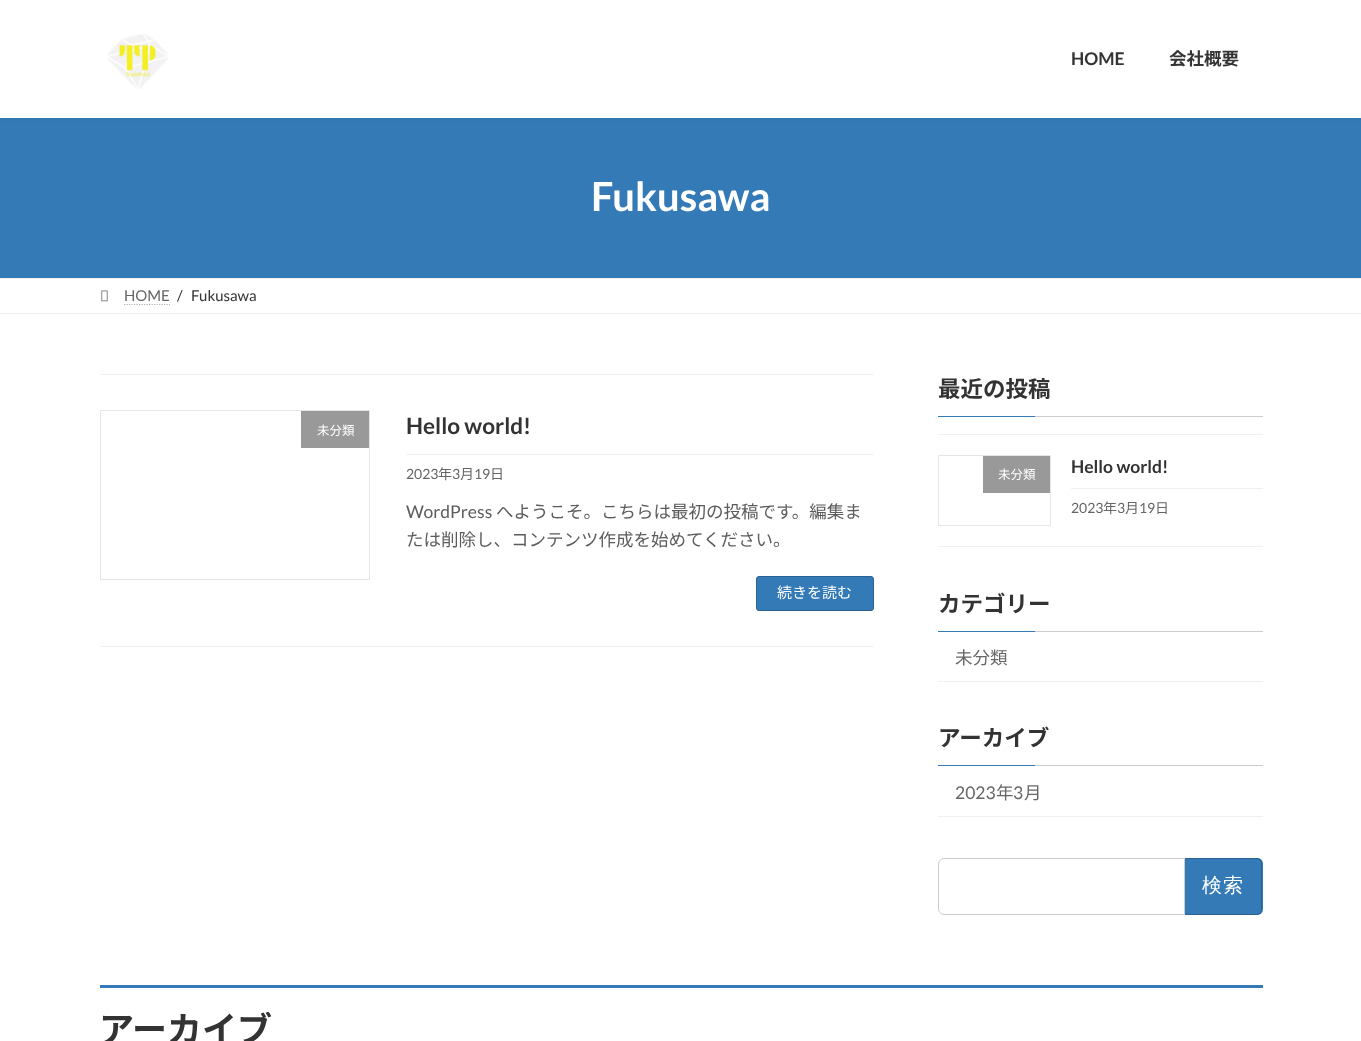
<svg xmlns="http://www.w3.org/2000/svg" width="1361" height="1041">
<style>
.a{font:bold 17.5px Lato;fill:#333}
.b{font:bold 17.5px Noto Sans JP;fill:#333}
.c{font:bold 40px Lato;fill:#fff}
.d{font:15px Lato;fill:#666}
.e{font:15px Lato;fill:#333}
.f{font:12.5px Noto Sans JP;fill:#fff}
.g{font:bold 22.5px Lato;fill:#333}
.h{font:14px Lato;fill:#666}
.i{font:14px Noto Sans JP;fill:#666}
.j{font:17.5px Lato;fill:#5c5c5c}
.k{font:17.5px Noto Sans JP;fill:#5c5c5c}
.l{font:15px Noto Sans JP;fill:#fff}
.m{font:bold 22.5px Noto Sans JP;fill:#333}
.n{font:17.5px Noto Sans JP;fill:#666}
.o{font:17.5px Lato;fill:#666}
.p{font:500 20px WenQuanYi Zen Hei;letter-spacing:1px;fill:#fff}
.q{font:bold 35px Noto Sans JP;fill:#333}
</style>
<rect width="100%" height="100%" fill="#fff"/>
<path fill="#337ab7" d="M0 118h1361v160H0z"/>
<path fill="#0000000d" filter="blur(2px)" d="M0 1h1361v118H0z"/>
<path fill="#fff" d="M0 0h1361v118H0z"/>
<image href="1.png" x="107" y="34" width="62" height="55"/>
<path fill="#f0f0f0" d="M0 278h1361v1H0z"/>
<path fill="#f0f0f0" d="M0 313h1361v1H0z"/>
<image href="2.png" x="101" y="290" width="7" height="12"/>
<path fill="none" stroke="#b3b3b3" stroke-width="1.2" stroke-dasharray="1.25 1.25" d="M124 304.5h46"/>
<path fill="#f0f0f0" d="M100 374h774v1H100z"/>
<path fill="#f0f0f0" d="M100 646h774v1H100z"/>
<path fill="none" stroke="#e5e5e5" d="M100.5 410.5h269v169H100.5z"/>
<path fill="#999" d="M301 411h68v37H301z"/>
<path fill="#f0f0f0" d="M406 454h468v1H406z"/>
<rect fill="#337ab7" stroke="#286192" x="756.5" y="576.5" width="117" height="34" rx="2.5"/>
<path fill="#ccc" d="M1035 416h228v1H1035z"/>
<path fill="#337ab7" d="M938 416h97v1H938z"/>
<path fill="#f0f0f0" d="M938 434h325v1H938z"/>
<path fill="#f0f0f0" d="M938 546h325v1H938z"/>
<path fill="none" stroke="#e5e5e5" d="M938.5 455.5h112v70H938.5z"/>
<path fill="#999" d="M983 456h67v37H983z"/>
<path fill="#f0f0f0" d="M1071 488h192v1H1071z"/>
<path fill="#ccc" d="M1035 631h228v1H1035z"/>
<path fill="#337ab7" d="M938 631h97v1H938z"/>
<path fill="#f0f0f0" d="M938 681h325v1H938z"/>
<path fill="#ccc" d="M1035 765h228v1H1035z"/>
<path fill="#337ab7" d="M938 765h97v1H938z"/>
<path fill="#f0f0f0" d="M938 816h325v1H938z"/>
<path fill="none" stroke="#ccc" d="M944 858.5h240.5v56h-240.5c-3 0-5.5-2.5-5.5-5.5v-45c0-3 2.5-5.5 5.5-5.5z"/>
<path fill="#337ab7" d="M1185 858h72c3.5 0 6 2.5 6 6v45c0 3.5-2.5 6-6 6h-72z"/>
<path fill="#00000033" fill-rule="evenodd" d="M1185 858h71c4 0 6 2 6 6v45c0 3-2 6-6 6h-71zm0 1h71c3 0 5 2 5 5v45c0 3-2 5-5 5h-71z"/>
<path fill="#337ab7" d="M100 985h1163v3H100z"/>
<text class="a" x="1071" y="65">HOME</text>
<text class="b" x="1169" y="65">会社概要</text>
<text class="c" x="591" y="211">Fukusawa</text>
<text class="d" x="124" y="301">HOME</text>
<text class="e" x="177" y="301">/</text>
<text class="e" x="191" y="301">Fukusawa</text>
<text class="f" x="317" y="435">未分類</text>
<text class="g" x="406" y="434">Hello world!</text>
<text class="h" x="406" y="479">2023</text>
<text class="i" x="438" y="479">年</text>
<text class="h" x="452" y="479">3</text>
<text class="i" x="460" y="479">月</text>
<text class="h" x="474" y="479">19</text>
<text class="i" x="490" y="479">日</text>
<text class="j" x="406" y="518">WordPress</text>
<text class="k" x="496" y="518">へようこそ。こちらは最初の投稿です。編集ま</text>
<text class="k" x="406" y="546">たは削除し、コンテンツ作成を始めてください。</text>
<text class="l" x="777" y="598">続きを読む</text>
<text class="m" x="938" y="397">最近の投稿</text>
<text class="f" x="998" y="479">未分類</text>
<text class="a" x="1071" y="473">Hello world!</text>
<text class="h" x="1071" y="513">2023</text>
<text class="i" x="1103" y="513">年</text>
<text class="h" x="1117" y="513">3</text>
<text class="i" x="1125" y="513">月</text>
<text class="h" x="1139" y="513">19</text>
<text class="i" x="1155" y="513">日</text>
<text class="m" x="938" y="612">カテゴリー</text>
<text class="n" x="955" y="664">未分類</text>
<text class="m" x="938" y="746">アーカイブ</text>
<text class="o" x="955" y="799">2023</text>
<text class="n" x="996" y="799">年</text>
<text class="o" x="1013" y="799">3</text>
<text class="n" x="1024" y="799">月</text>
<text class="p" x="1202" y="892">検索</text>
<text class="q" x="99" y="1042">アーカイブ</text>
</svg>
